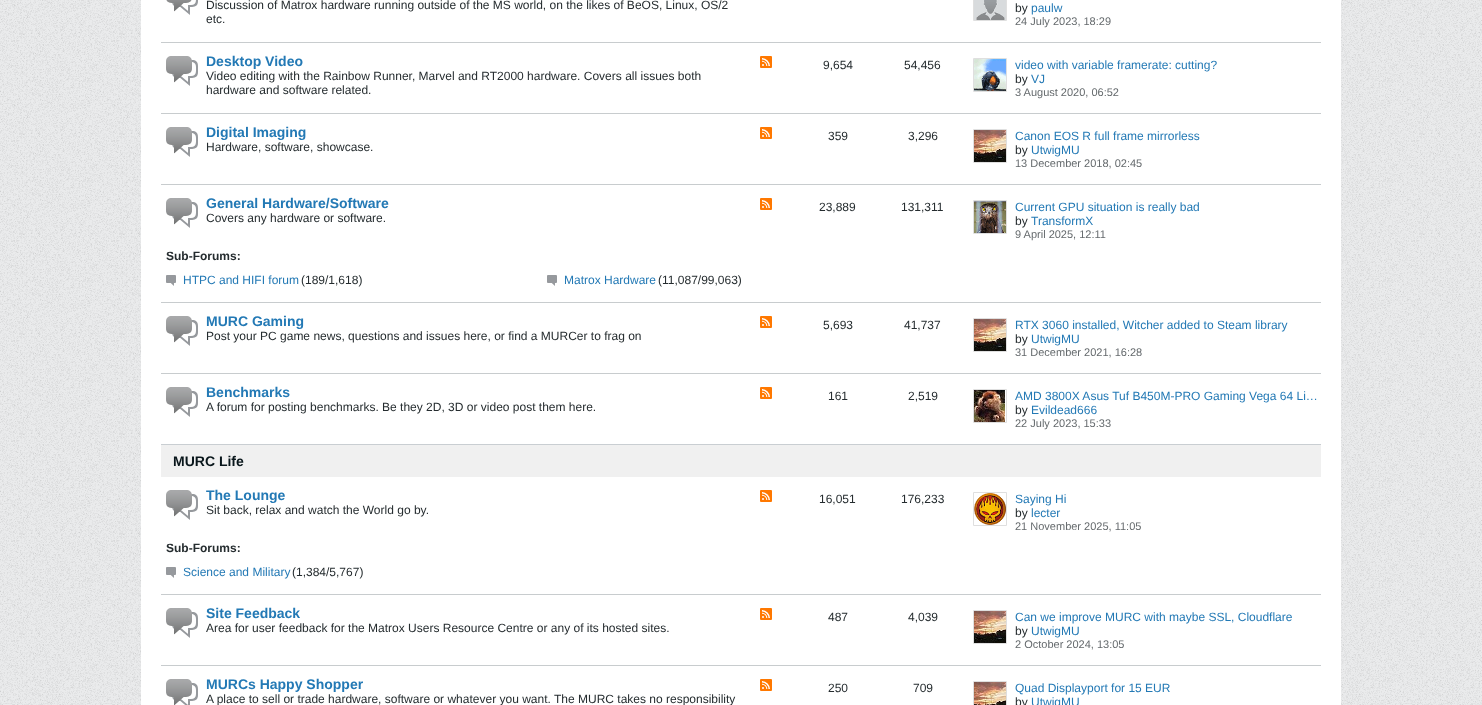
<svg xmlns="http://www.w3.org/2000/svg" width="1482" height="705">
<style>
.a{font:12px Liberation Sans;fill:#252c2f}
.b{font:12px Liberation Sans;fill:#2379b5}
.c{font:11px Liberation Sans;fill:#656a6d}
.d{font:bold 14px Liberation Sans;fill:#2379b5}
.e{font:bold 12px Liberation Sans;fill:#252c2f}
.f{font:bold 14px Liberation Sans;fill:#09161b}
</style>
<rect width="100%" height="100%" fill="#eaebec"/>
<image href="1.png" x="0" y="0" width="1482" height="705"/>
<path fill="#fff" d="M141 0h1200v705H141z"/>
<image href="2.png" x="166" y="0" width="32" height="15"/>
<path fill="none" stroke="#dfdfdf" d="M973.5 -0.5h33v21H973.5z"/>
<image href="3.png" x="974" y="0" width="32" height="20"/>
<path fill="#c8ccce" d="M161 42h1160v1H161z"/>
<image href="4.png" x="166" y="56" width="32" height="30"/>
<image href="5.png" x="760" y="56" width="12" height="12"/>
<path fill="none" stroke="#dfdfdf" d="M973.5 58.5h33v33H973.5z"/>
<image href="6.png" x="974" y="59" width="32" height="32"/>
<path fill="#c8ccce" d="M161 113h1160v1H161z"/>
<image href="4.png" x="166" y="127" width="32" height="30"/>
<image href="5.png" x="760" y="127" width="12" height="12"/>
<path fill="none" stroke="#dfdfdf" d="M973.5 129.5h33v33H973.5z"/>
<image href="7.png" x="974" y="130" width="32" height="32"/>
<path fill="#c8ccce" d="M161 184h1160v1H161z"/>
<image href="4.png" x="166" y="198" width="32" height="30"/>
<image href="5.png" x="760" y="198" width="12" height="12"/>
<path fill="none" stroke="#dfdfdf" d="M973.5 200.5h33v33H973.5z"/>
<image href="8.png" x="974" y="201" width="32" height="32"/>
<image href="9.png" x="166" y="275" width="10" height="11"/>
<image href="9.png" x="547" y="275" width="10" height="11"/>
<path fill="#c8ccce" d="M161 302h1160v1H161z"/>
<image href="4.png" x="166" y="316" width="32" height="30"/>
<image href="5.png" x="760" y="316" width="12" height="12"/>
<path fill="none" stroke="#dfdfdf" d="M973.5 318.5h33v33H973.5z"/>
<image href="10.png" x="974" y="319" width="32" height="32"/>
<path fill="#c8ccce" d="M161 373h1160v1H161z"/>
<image href="4.png" x="166" y="387" width="32" height="30"/>
<image href="5.png" x="760" y="387" width="12" height="12"/>
<path fill="none" stroke="#dfdfdf" d="M973.5 389.5h33v33H973.5z"/>
<image href="11.png" x="974" y="390" width="31" height="32"/>
<path fill="#f0f0f0" d="M161 445h1160v32H161z"/>
<path fill="#c9ced2" d="M161 444h1160v1H161z"/>
<image href="4.png" x="166" y="490" width="32" height="30"/>
<image href="5.png" x="760" y="490" width="12" height="12"/>
<path fill="none" stroke="#dfdfdf" d="M973.5 492.5h33v33H973.5z"/>
<image href="12.png" x="974" y="493" width="32" height="32"/>
<image href="9.png" x="166" y="567" width="10" height="11"/>
<path fill="#c8ccce" d="M161 594h1160v1H161z"/>
<image href="4.png" x="166" y="608" width="32" height="30"/>
<image href="5.png" x="760" y="608" width="12" height="12"/>
<path fill="none" stroke="#dfdfdf" d="M973.5 610.5h33v33H973.5z"/>
<image href="7.png" x="974" y="611" width="32" height="32"/>
<path fill="#c8ccce" d="M161 665h1160v1H161z"/>
<image href="13.png" x="166" y="679" width="32" height="26"/>
<image href="5.png" x="760" y="679" width="12" height="12"/>
<path fill="none" stroke="#dfdfdf" d="M973.5 681.5h33v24H973.5z"/>
<image href="14.png" x="974" y="682" width="32" height="23"/>
<text class="a" x="206" y="9">Discussion of Matrox hardware running outside of the MS world, on the likes of BeOS, Linux, OS/2</text>
<text class="a" x="206" y="23">etc.</text>
<text class="a" x="1015" y="12">by</text>
<text class="b" x="1031" y="12">paulw</text>
<text class="c" x="1015" y="25">24 July 2023, 18:29</text>
<text class="d" x="206" y="66">Desktop Video</text>
<text class="a" x="206" y="80">Video editing with the Rainbow Runner, Marvel and RT2000 hardware. Covers all issues both</text>
<text class="a" x="206" y="94">hardware and software related.</text>
<text class="a" x="823" y="69">9,654</text>
<text class="a" x="904" y="69">54,456</text>
<text class="b" x="1015" y="69">video with variable framerate: cutting?</text>
<text class="a" x="1015" y="83">by</text>
<text class="b" x="1031" y="83">VJ</text>
<text class="c" x="1015" y="96">3 August 2020, 06:52</text>
<text class="d" x="206" y="137">Digital Imaging</text>
<text class="a" x="206" y="151">Hardware, software, showcase.</text>
<text class="a" x="828" y="140">359</text>
<text class="a" x="908" y="140">3,296</text>
<text class="b" x="1015" y="140">Canon EOS R full frame mirrorless</text>
<text class="a" x="1015" y="154">by</text>
<text class="b" x="1031" y="154">UtwigMU</text>
<text class="c" x="1015" y="167">13 December 2018, 02:45</text>
<text class="d" x="206" y="208">General Hardware/Software</text>
<text class="a" x="206" y="222">Covers any hardware or software.</text>
<text class="a" x="819" y="211">23,889</text>
<text class="a" x="901" y="211">131,311</text>
<text class="b" x="1015" y="211">Current GPU situation is really bad</text>
<text class="a" x="1015" y="225">by</text>
<text class="b" x="1031" y="225">TransformX</text>
<text class="c" x="1015" y="238">9 April 2025, 12:11</text>
<text class="e" x="166" y="260">Sub-Forums:</text>
<text class="b" x="183" y="284">HTPC and HIFI forum</text>
<text class="a" x="301" y="284">(189/1,618)</text>
<text class="b" x="564" y="284">Matrox Hardware</text>
<text class="a" x="658" y="284">(11,087/99,063)</text>
<text class="d" x="206" y="326">MURC Gaming</text>
<text class="a" x="206" y="340">Post your PC game news, questions and issues here, or find a MURCer to frag on</text>
<text class="a" x="823" y="329">5,693</text>
<text class="a" x="904" y="329">41,737</text>
<text class="b" x="1015" y="329">RTX 3060 installed, Witcher added to Steam library</text>
<text class="a" x="1015" y="343">by</text>
<text class="b" x="1031" y="343">UtwigMU</text>
<text class="c" x="1015" y="356">31 December 2021, 16:28</text>
<text class="d" x="206" y="397">Benchmarks</text>
<text class="a" x="206" y="411">A forum for posting benchmarks. Be they 2D, 3D or video post them here.</text>
<text class="a" x="828" y="400">161</text>
<text class="a" x="908" y="400">2,519</text>
<text class="b" x="1015" y="400">AMD 3800X Asus Tuf B450M-PRO Gaming Vega 64 Li…</text>
<text class="a" x="1015" y="414">by</text>
<text class="b" x="1031" y="414">Evildead666</text>
<text class="c" x="1015" y="427">22 July 2023, 15:33</text>
<text class="f" x="173" y="466">MURC Life</text>
<text class="d" x="206" y="500">The Lounge</text>
<text class="a" x="206" y="514">Sit back, relax and watch the World go by.</text>
<text class="a" x="819" y="503">16,051</text>
<text class="a" x="901" y="503">176,233</text>
<text class="b" x="1015" y="503">Saying Hi</text>
<text class="a" x="1015" y="517">by</text>
<text class="b" x="1031" y="517">lecter</text>
<text class="c" x="1015" y="530">21 November 2025, 11:05</text>
<text class="e" x="166" y="552">Sub-Forums:</text>
<text class="b" x="183" y="576">Science and Military</text>
<text class="a" x="292" y="576">(1,384/5,767)</text>
<text class="d" x="206" y="618">Site Feedback</text>
<text class="a" x="206" y="632">Area for user feedback for the Matrox Users Resource Centre or any of its hosted sites.</text>
<text class="a" x="828" y="621">487</text>
<text class="a" x="908" y="621">4,039</text>
<text class="b" x="1015" y="621">Can we improve MURC with maybe SSL, Cloudflare</text>
<text class="a" x="1015" y="635">by</text>
<text class="b" x="1031" y="635">UtwigMU</text>
<text class="c" x="1015" y="648">2 October 2024, 13:05</text>
<text class="d" x="206" y="689">MURCs Happy Shopper</text>
<text class="a" x="206" y="703">A place to sell or trade hardware, software or whatever you want. The MURC takes no responsibility</text>
<text class="a" x="828" y="692">250</text>
<text class="a" x="913" y="692">709</text>
<text class="b" x="1015" y="692">Quad Displayport for 15 EUR</text>
<text class="a" x="1015" y="706">by</text>
<text class="b" x="1031" y="706">UtwigMU</text>
</svg>
